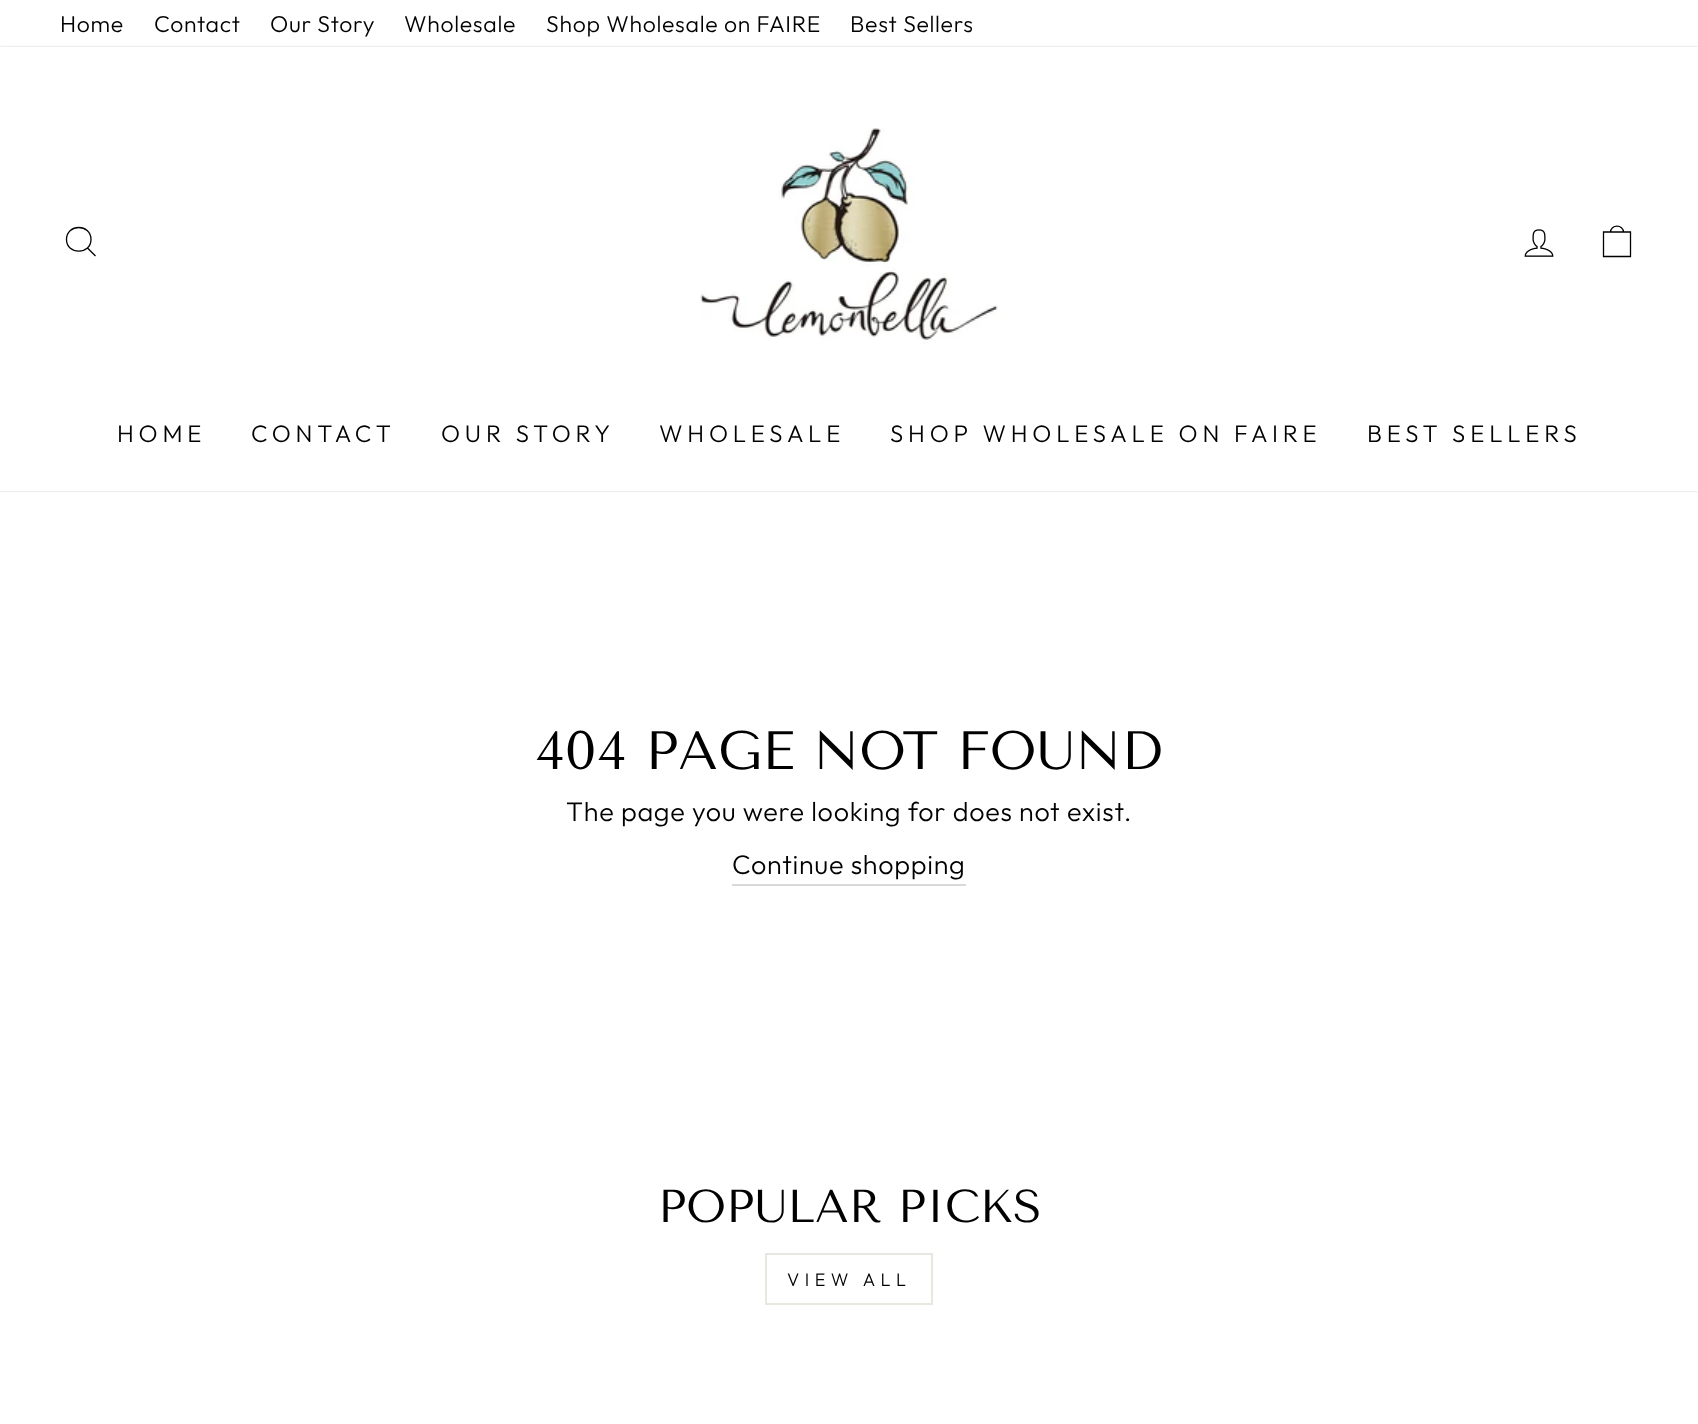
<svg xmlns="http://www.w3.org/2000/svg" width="1698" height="1424">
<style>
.a{font:300 23px Outfit;letter-spacing:0.7px;fill:#000}
.b{font:300 24px Outfit;letter-spacing:4.8px;fill:#000}
.c{font:54px Tenor Sans;fill:#000}
.d{font:300 27px Outfit;letter-spacing:0.7px;fill:#000}
.e{font:46px Tenor Sans;fill:#000}
.f{font:300 18px Outfit;letter-spacing:5.5px;fill:#000}
</style>
<rect width="100%" height="100%" fill="#fff"/>
<path fill="#00000033" filter="blur(1px)" d="M0 47h1698v444H0z"/>
<path fill="#fff" d="M0 47h1698v444H0z"/>
<path fill="none" stroke="#000" stroke-width="1.3" d="M91 239.5c0 15.5-24.5 15.5-24.5 0c0-16 24.5-16 24.5 0zm4.5 16.5l-8-8"/>
<image href="1.png" x="700" y="128" width="298" height="216"/>
<image href="2.png" x="1524" y="229" width="30" height="28"/>
<path fill="none" stroke="#000" stroke-width="1.3" d="M1603.5 232h27v24.5h-27zm7 .5c0-8.5 13-8.5 13 0"/>
<path fill="#d9d9d9" d="M732 884h234v2H732z"/>
<path fill="none" stroke="#e8e8e1" stroke-width="2" d="M766 1254h166v50H766z"/>
<text class="a" x="60" y="32">Home</text>
<text class="a" x="154" y="32">Contact</text>
<text class="a" x="270" y="32">Our Story</text>
<text class="a" x="404" y="32">Wholesale</text>
<text class="a" x="546" y="32">Shop Wholesale on FAIRE</text>
<text class="a" x="850" y="32">Best Sellers</text>
<text class="b" x="117" y="442">HOME</text>
<text class="b" x="251" y="442">CONTACT</text>
<text class="b" x="441" y="442">OUR STORY</text>
<text class="b" x="659" y="442">WHOLESALE</text>
<text class="b" x="890" y="442">SHOP WHOLESALE ON FAIRE</text>
<text class="b" x="1367" y="442">BEST SELLERS</text>
<text class="c" x="535" y="769">404 PAGE NOT FOUND</text>
<text class="d" x="566" y="821">The page you were looking for does not exist.</text>
<text class="d" x="732" y="874">Continue shopping</text>
<text class="e" x="658" y="1222">POPULAR PICKS</text>
<text class="f" x="787" y="1286">VIEW ALL</text>
</svg>
